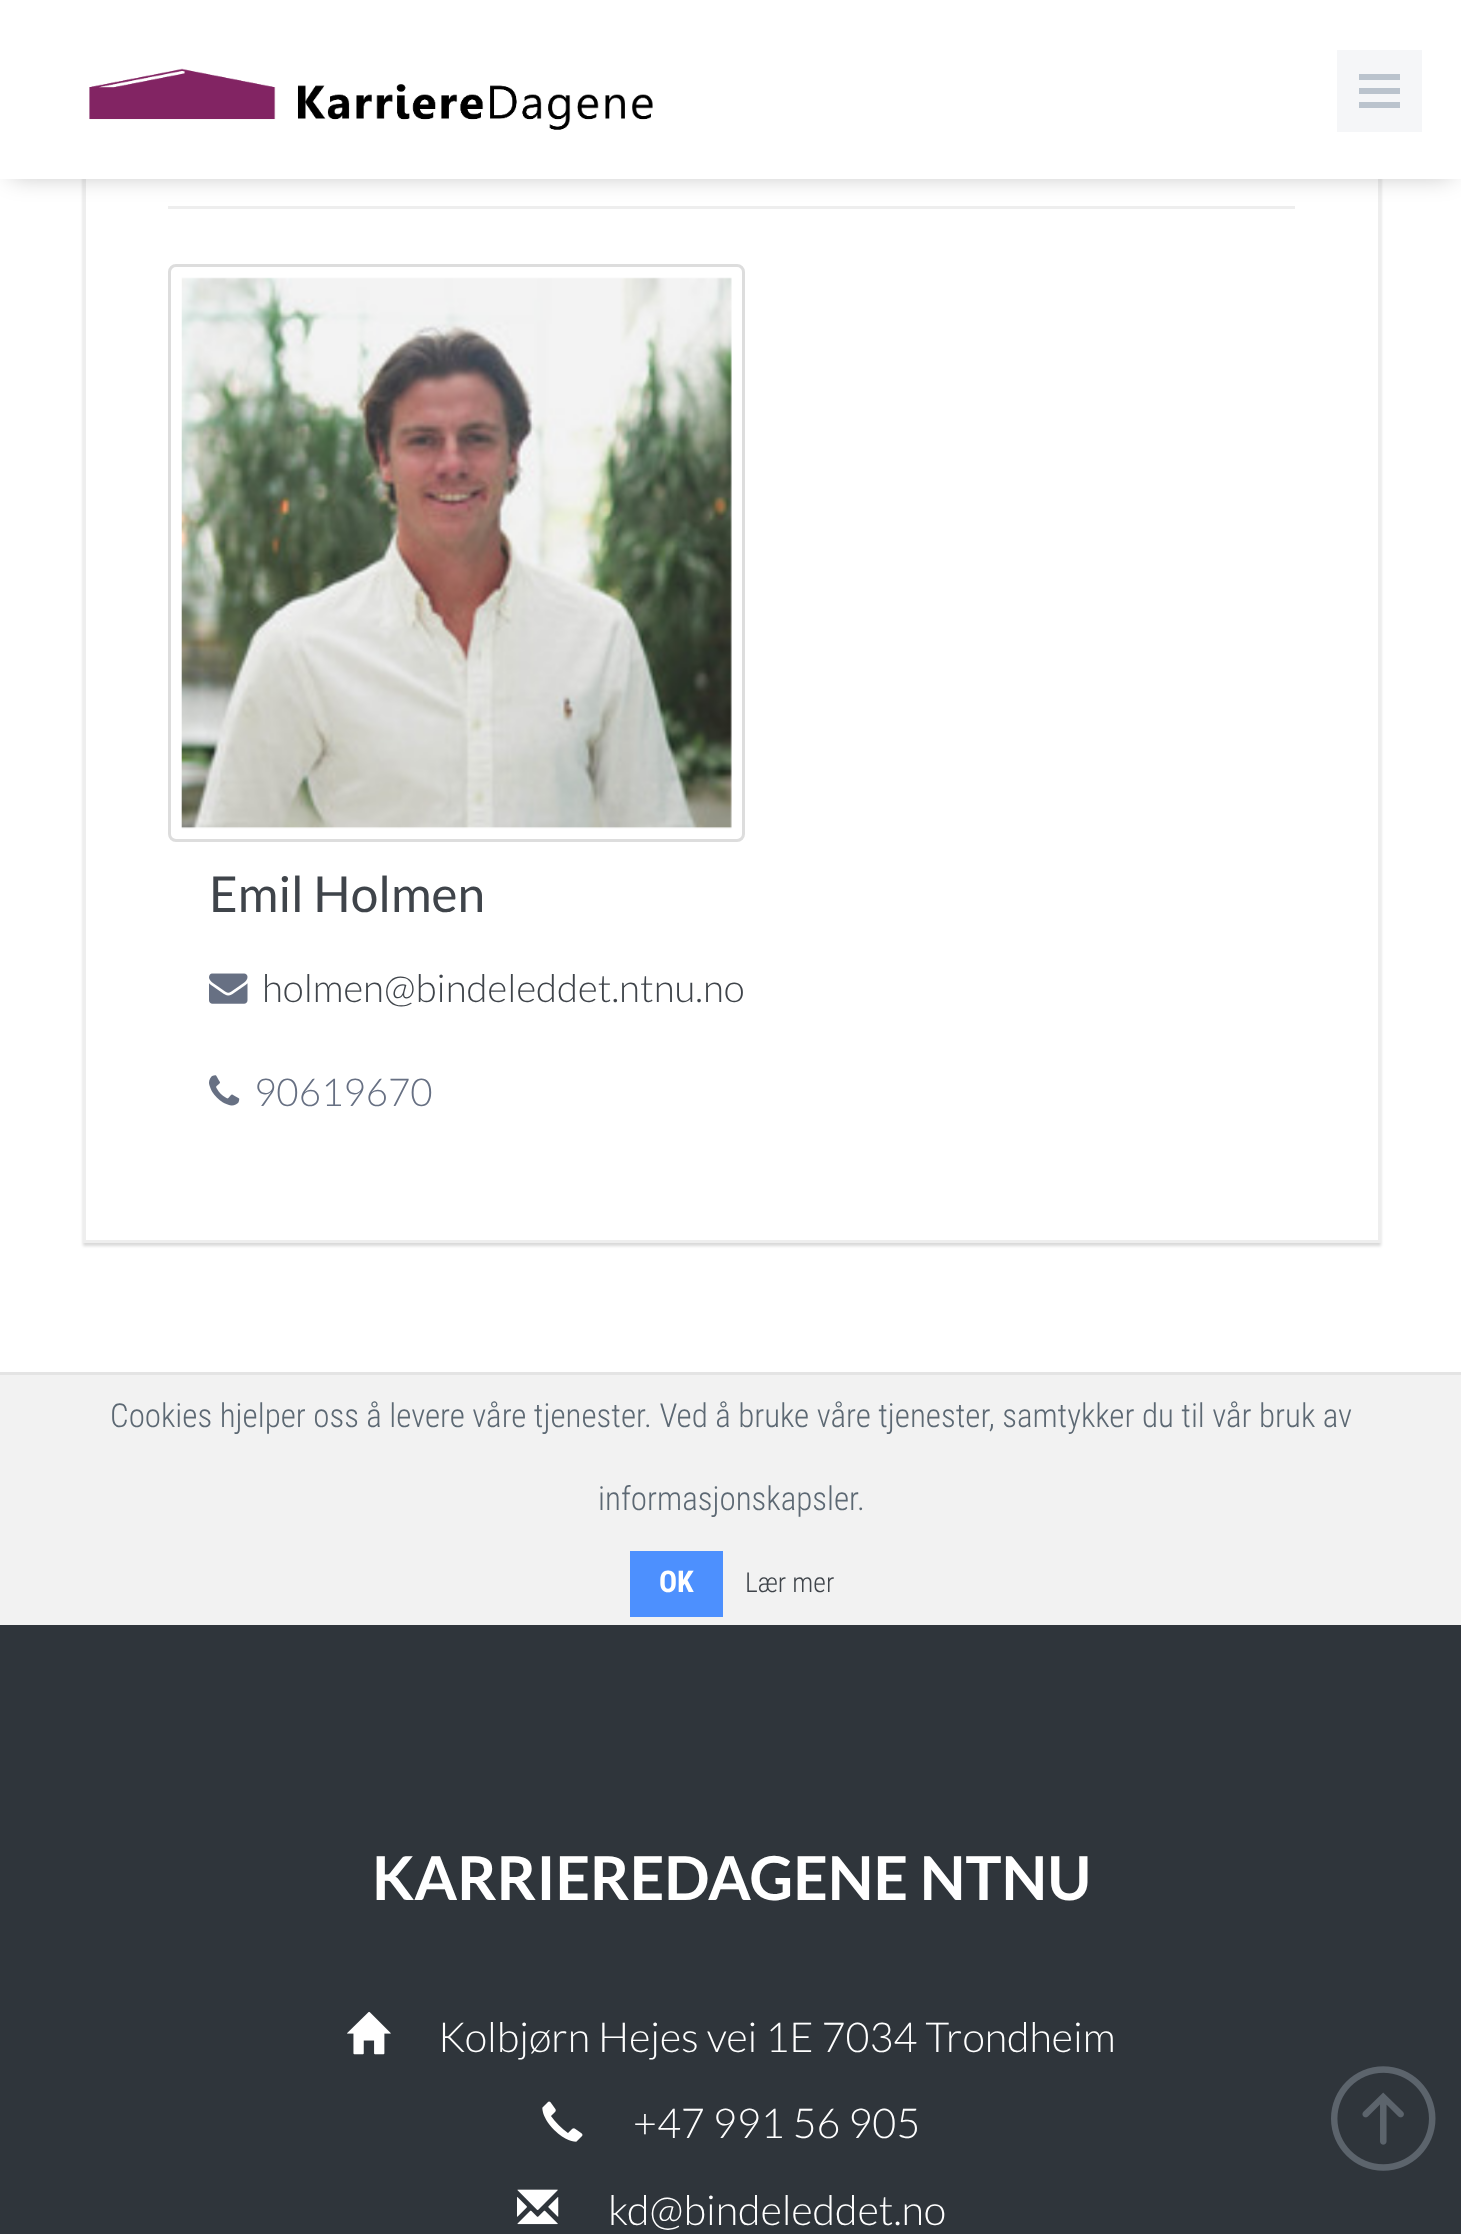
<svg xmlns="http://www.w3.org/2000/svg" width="1461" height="2234">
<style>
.a{font:49.5px Lato;fill:#3f444a}
.b{font:300 38.5px Lato;fill:#3f444a}
.c{font:300 38.5px Lato;fill:#677083}
.d{font:300 33px Roboto Condensed;fill:#5c6873}
.e{font:bold 30px Roboto Condensed;fill:#fff}
.f{font:300 27.5px Roboto Condensed;fill:#3f444a}
.g{font:bold 60.5px Lato;fill:#fff}
.h{font:300 41.25px Lato;fill:#fff}
</style>
<rect width="100%" height="100%" fill="#fff"/>
<path fill="#00000026" filter="blur(1.5px)" d="M83 -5h1298v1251H83z"/>
<path fill="#fff" d="M86 179h1292v1061H86z"/>
<path fill="none" stroke="#eee" stroke-width="3" d="M84.5 -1.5h1295v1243H84.5z"/>
<path fill="#eee" d="M168 206h1127v3H168z"/>
<path fill="#00000040" filter="blur(12.5px)" d="M11 19h1441v157H11z"/>
<path fill="#fff" d="M0 0h1461v179H0z"/>
<image href="1.png" x="89" y="68" width="564" height="62"/>
<path fill="#f5f6f8" d="M1337 50h85v82H1337z"/>
<path fill="#bac3cd" d="M1359 74h41v6H1359z"/>
<path fill="#bac3cd" d="M1359 88h41v6H1359z"/>
<path fill="#bac3cd" d="M1359 102h41v6H1359z"/>
<rect fill="none" stroke="#ddd" stroke-width="3" x="169.5" y="265.5" width="574" height="575" rx="6.5"/>
<image href="2.png" x="181" y="277" width="551" height="552"/>
<image href="3.png" x="209" y="973" width="39" height="31"/>
<image href="4.png" x="209" y="1075" width="31" height="31"/>
<path fill="#f2f2f2" d="M0 1375h1461v250H0z"/>
<path fill="#e4e4e4" d="M0 1372h1461v3H0z"/>
<path fill="#4d90fe" d="M630 1551h93v66H630z"/>
<path fill="#2f353b" d="M0 1625h1461v609H0z"/>
<image href="5.png" x="347" y="2011" width="44" height="44"/>
<image href="6.png" x="542" y="2101" width="41" height="41"/>
<image href="7.png" x="517" y="2189" width="42" height="36"/>
<image href="8.png" x="1331" y="2066" width="105" height="105"/>
<text class="a" x="209" y="912">Emil Holmen</text>
<text class="b" x="262" y="1002">holmen@bindeleddet.ntnu.no</text>
<text class="c" x="254" y="1106">90619670</text>
<text class="d" x="110" y="1427">Cookies hjelper oss å levere våre tjenester. Ved å bruke våre tjenester, samtykker du til vår bruk av</text>
<text class="d" x="598" y="1510">informasjonskapsler.</text>
<text class="e" x="659" y="1592">OK</text>
<text class="f" x="745" y="1592">Lær mer</text>
<text class="g" x="372" y="1900">KARRIEREDAGENE NTNU</text>
<text class="h" x="438" y="2052">Kolbjørn Hejes vei 1E 7034 Trondheim</text>
<text class="h" x="633" y="2138">+47 991 56 905</text>
<text class="h" x="608" y="2225">kd@bindeleddet.no</text>
</svg>
